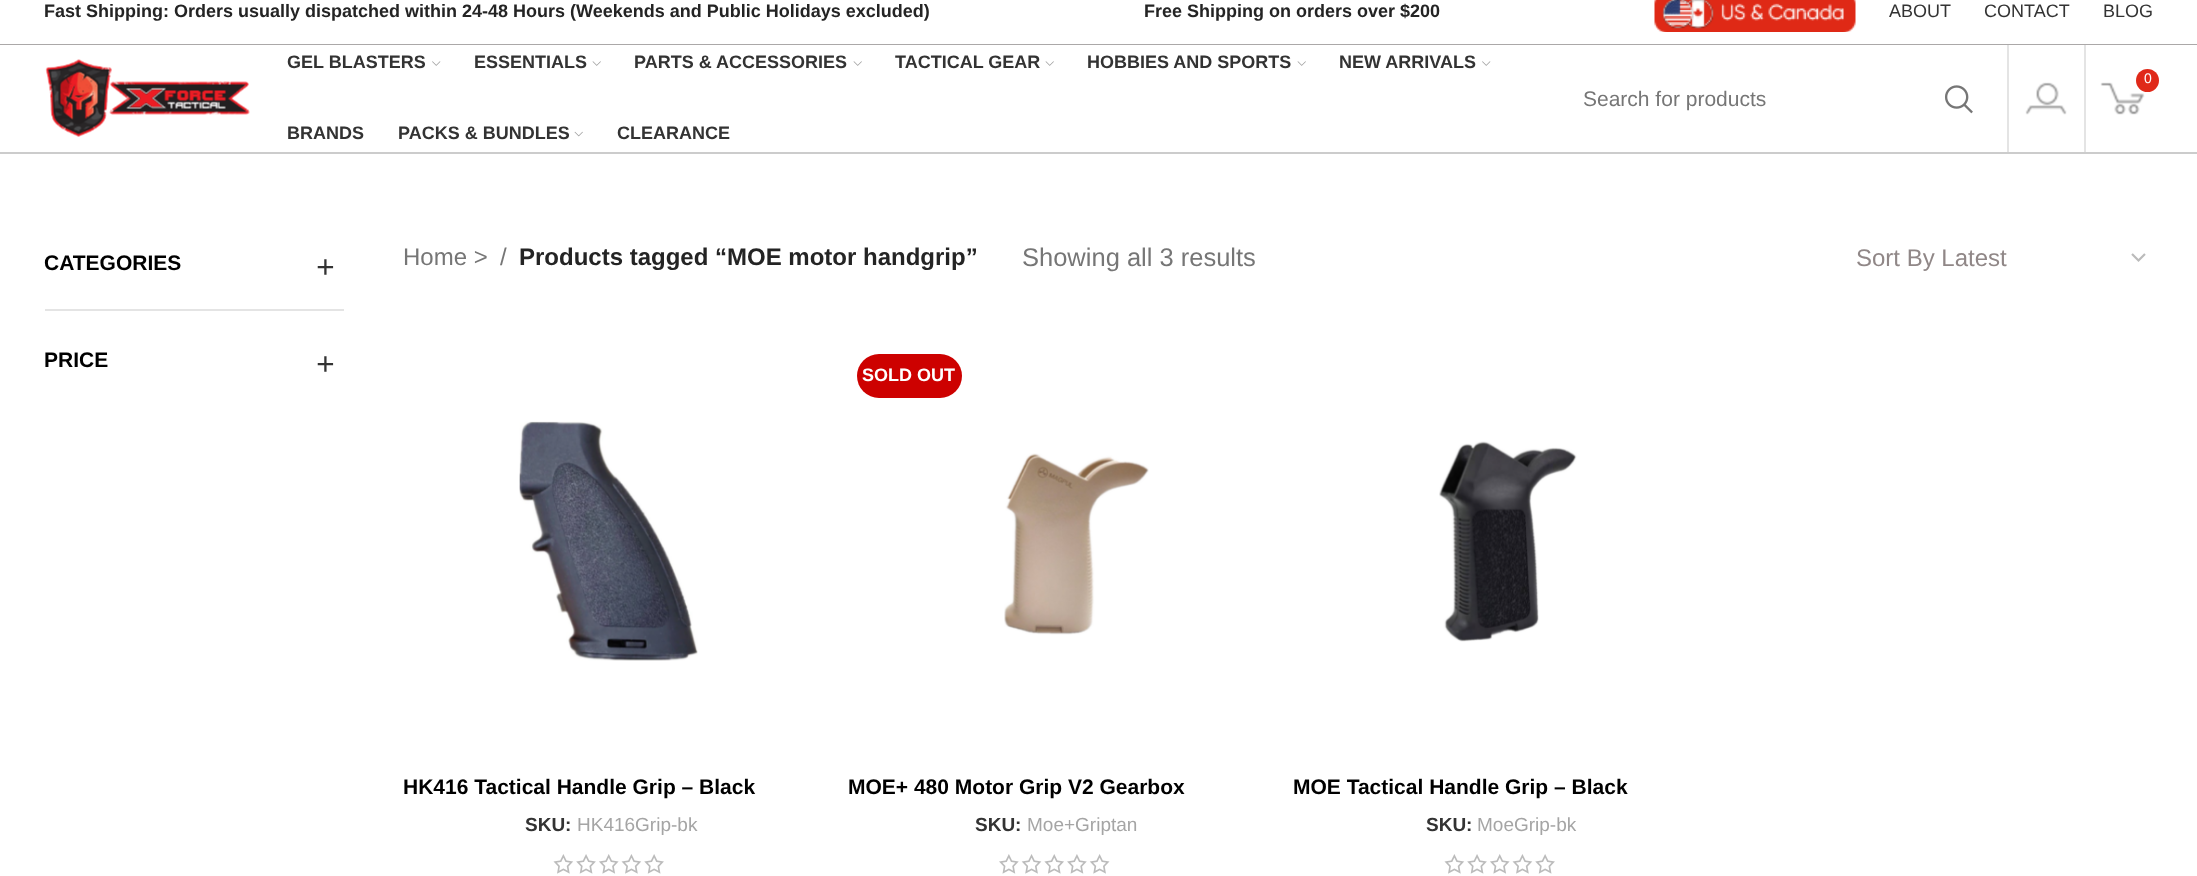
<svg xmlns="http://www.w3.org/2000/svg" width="2197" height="876">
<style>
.a{font:bold 18px Liberation Sans;fill:#242424}
.b{font:18px Liberation Sans;fill:#333}
.c{font:bold 18px Liberation Sans;fill:#333}
.d{font:14px Liberation Sans;fill:#fff}
.e{font:21px Liberation Sans;fill:#767676}
.f{font:bold 21px Liberation Sans;fill:#000}
.g{font:bold 33px Liberation Serif;fill:#333}
.h{font:24px Liberation Sans;fill:#767676}
.i{font:bold 24px Liberation Sans;fill:#242424}
.j{font:25.5px Liberation Sans;fill:#767676}
.k{font:24px Liberation Sans;fill:#908787}
.l{font:bold 19px Liberation Sans;fill:#333}
.m{font:19px Liberation Sans;fill:#a5a5a5}
.n{font:bold 18px Liberation Sans;fill:#fff}
</style>
<rect width="100%" height="100%" fill="#fff"/>
<path fill="#aba8a8" d="M0 44h2197v1H0z"/>
<image href="1.png" x="1654" y="0" width="202" height="32"/>
<path fill="#ccc" d="M0 152h2197v2H0z"/>
<image href="2.png" x="45" y="59" width="205" height="78"/>
<image href="3.png" x="432" y="61" width="9" height="5"/>
<image href="4.png" x="592" y="61" width="9" height="5"/>
<image href="4.png" x="853" y="61" width="9" height="5"/>
<image href="4.png" x="1045" y="61" width="9" height="5"/>
<image href="4.png" x="1297" y="61" width="9" height="5"/>
<image href="3.png" x="1482" y="61" width="9" height="5"/>
<image href="5.png" x="574" y="131" width="9" height="6"/>
<path fill="#e4e4e4" d="M2007 45h2v107H2007z"/>
<path fill="#e4e4e4" d="M2084 45h2v107H2084z"/>
<image href="6.png" x="2100" y="82" width="45" height="33"/>
<circle fill="#e02919" cx="2147.5" cy="80.5" r="11.5"/>
<image href="7.png" x="1945" y="85" width="28" height="29"/>
<image href="8.png" x="2025" y="82" width="42" height="33"/>
<path fill="#e4e4e4" d="M45 309h299v2H45z"/>
<path fill="none" stroke="#bbb" stroke-width="2.2" d="M2132 254l6.5 6.5l6.5-6.5"/>
<image href="9.png" x="519" y="421" width="179" height="240"/>
<image href="10.png" x="553" y="854" width="111" height="20"/>
<rect fill="#cd0100" x="857" y="354" width="105" height="44" rx="22"/>
<image href="11.png" x="1004" y="453" width="145" height="182"/>
<image href="12.png" x="999" y="854" width="111" height="20"/>
<image href="13.png" x="1439" y="441" width="138" height="201"/>
<image href="10.png" x="1444" y="854" width="111" height="20"/>
<text class="a" x="44" y="17">Fast Shipping: Orders usually dispatched within 24-48 Hours (Weekends and Public Holidays excluded)</text>
<text class="a" x="1144" y="17">Free Shipping on orders over $200</text>
<text class="b" x="1889" y="17">ABOUT</text>
<text class="b" x="1984" y="17">CONTACT</text>
<text class="b" x="2103" y="17">BLOG</text>
<text class="c" x="287" y="68">GEL BLASTERS</text>
<text class="c" x="474" y="68">ESSENTIALS</text>
<text class="c" x="634" y="68">PARTS &amp; ACCESSORIES</text>
<text class="c" x="895" y="68">TACTICAL GEAR</text>
<text class="c" x="1087" y="68">HOBBIES AND SPORTS</text>
<text class="c" x="1339" y="68">NEW ARRIVALS</text>
<text class="c" x="287" y="139">BRANDS</text>
<text class="c" x="398" y="139">PACKS &amp; BUNDLES</text>
<text class="c" x="617" y="139">CLEARANCE</text>
<text class="d" x="2144" y="83">0</text>
<text class="e" x="1583" y="106">Search for products</text>
<text class="f" x="44" y="270">CATEGORIES</text>
<text class="g" x="316" y="278">+</text>
<text class="f" x="44" y="367">PRICE</text>
<text class="g" x="316" y="375">+</text>
<text class="h" x="403" y="265">Home &gt;</text>
<text class="h" x="500" y="265">/</text>
<text class="i" x="519" y="265">Products tagged “MOE motor handgrip”</text>
<text class="j" x="1022" y="266">Showing all 3 results</text>
<text class="k" x="1856" y="266">Sort By Latest</text>
<text class="f" x="403" y="794">HK416 Tactical Handle Grip – Black</text>
<text class="l" x="525" y="831">SKU:</text>
<text class="m" x="577" y="831">HK416Grip-bk</text>
<text class="n" x="862" y="381">SOLD OUT</text>
<text class="f" x="848" y="794">MOE+ 480 Motor Grip V2 Gearbox</text>
<text class="l" x="975" y="831">SKU:</text>
<text class="m" x="1027" y="831">Moe+Griptan</text>
<text class="f" x="1293" y="794">MOE Tactical Handle Grip – Black</text>
<text class="l" x="1426" y="831">SKU:</text>
<text class="m" x="1477" y="831">MoeGrip-bk</text>
</svg>
